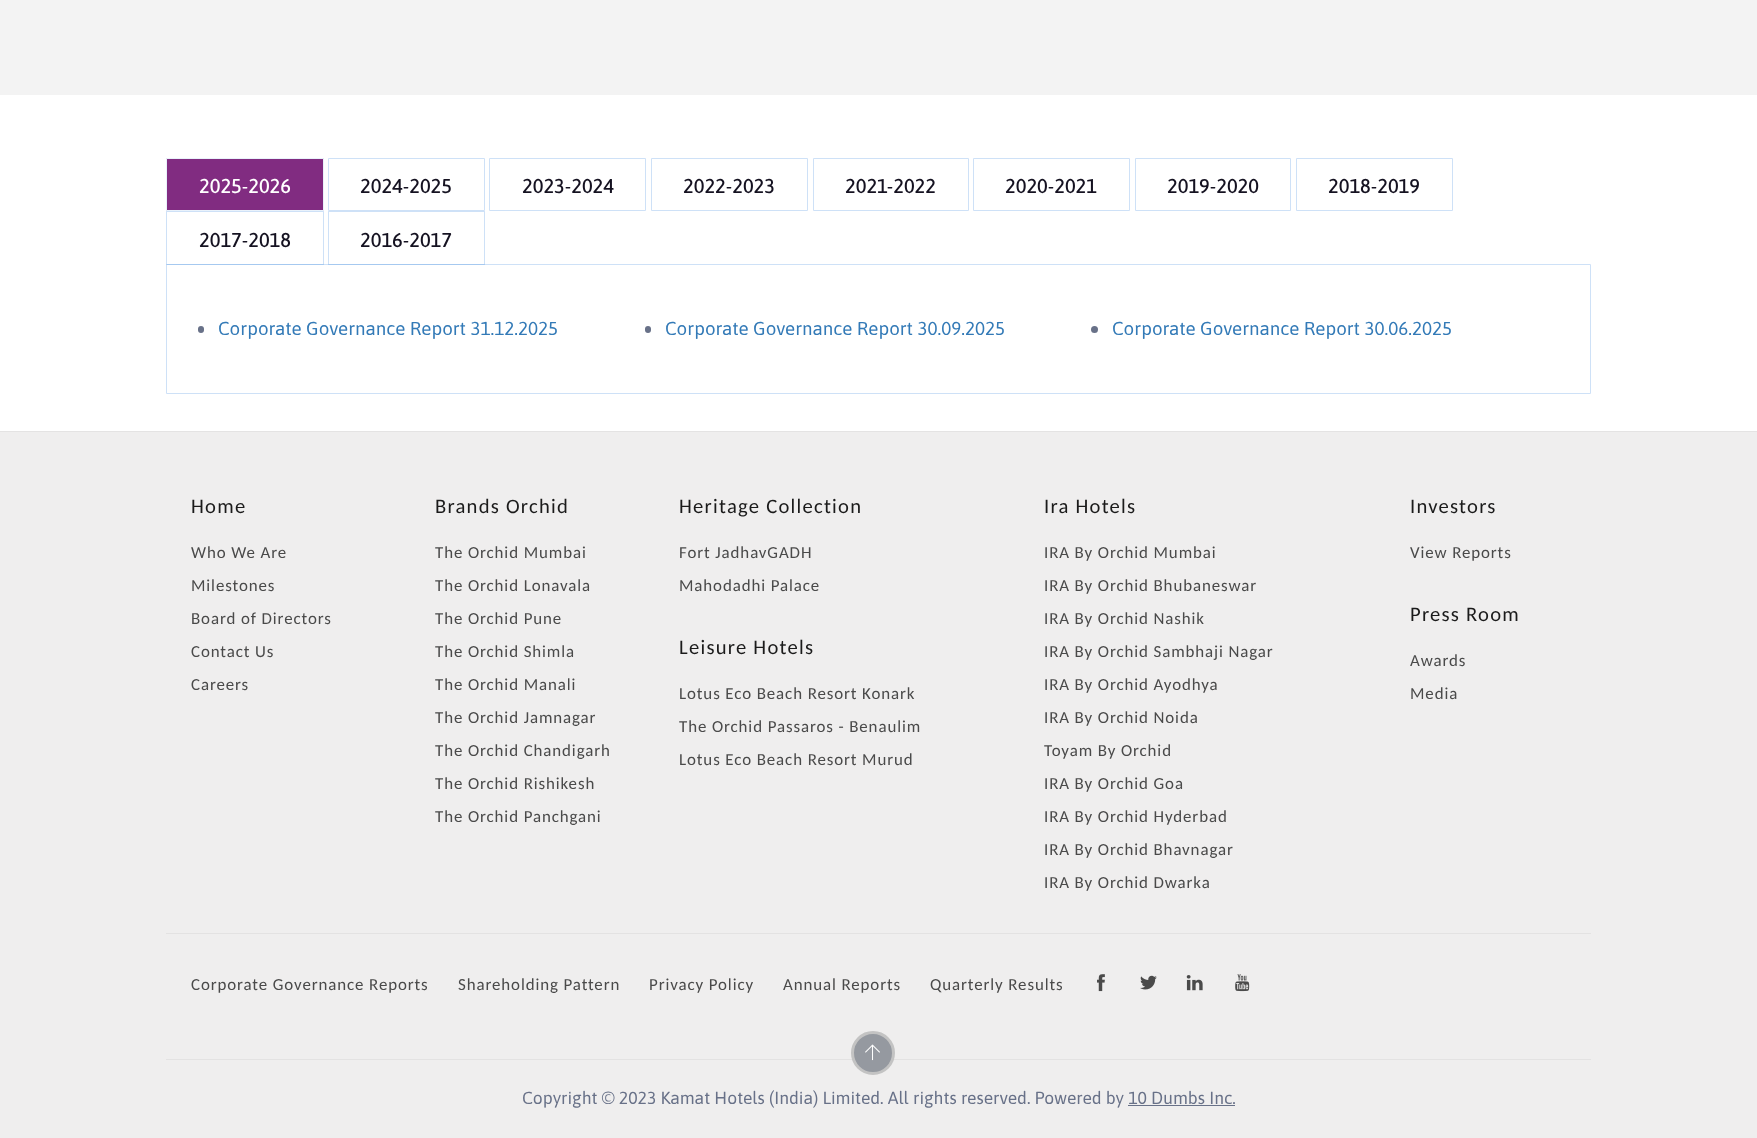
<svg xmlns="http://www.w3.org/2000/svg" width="1757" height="1138">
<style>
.a{font:500 20px Asap;fill:#fff}
.b{font:500 20px Asap;fill:#151221}
.c{font:18.75px Asap;fill:#337ab7}
.d{font:20.6px Carlito;letter-spacing:1.25px;fill:#1b1b1b}
.e{font:16.9px Carlito;letter-spacing:0.9px;fill:#4a4a4a}
.f{font:17.5px Asap;fill:#687188}
</style>
<rect width="100%" height="100%" fill="#fff"/>
<path fill="#f3f3f3" d="M0 0h1757v95H0z"/>
<path fill="#812c81" stroke="#e9f2fb" d="M166.5 158.5h157v52H166.5z"/>
<path fill="none" stroke="#cee1f7" d="M328.5 158.5h156v52H328.5z"/>
<path fill="none" stroke="#cee1f7" d="M489.5 158.5h156v52H489.5z"/>
<path fill="none" stroke="#cee1f7" d="M651.5 158.5h156v52H651.5z"/>
<path fill="none" stroke="#cee1f7" d="M813.5 158.5h155v52H813.5z"/>
<path fill="none" stroke="#cee1f7" d="M973.5 158.5h156v52H973.5z"/>
<path fill="none" stroke="#cee1f7" d="M1135.5 158.5h155v52H1135.5z"/>
<path fill="none" stroke="#cee1f7" d="M1296.5 158.5h156v52H1296.5z"/>
<path fill="none" stroke="#cee1f7" d="M166.5 264.5h1424v129H166.5z"/>
<path fill="none" stroke="#086ad833" d="M166.5 211.5h157v53H166.5z"/>
<path fill="none" stroke="#086ad833" d="M328.5 211.5h156v53H328.5z"/>
<rect fill="#687188" x="198" y="326" width="6" height="7" rx="3"/>
<rect fill="#687188" x="645" y="326" width="6" height="7" rx="3"/>
<circle fill="#687188" cx="1094.5" cy="329.5" r="3.5"/>
<path fill="#efeeee" d="M0 432h1757v706H0z"/>
<path fill="#e4e3e3" d="M0 431h1757v1H0z"/>
<path fill="#e3e2e2" d="M166 933h1425v1H166z"/>
<image href="1.png" x="1097" y="974" width="8" height="18"/>
<image href="2.png" x="1140" y="975" width="17" height="15"/>
<image href="3.png" x="1186" y="975" width="17" height="16"/>
<image href="4.png" x="1235" y="974" width="15" height="18"/>
<path fill="#e3e2e2" d="M166 1059h1425v1H166z"/>
<circle fill="#9599a0" stroke="#c3c3c3" stroke-width="3" cx="873" cy="1053" r="20.5"/>
<image href="5.png" x="865" y="1044" width="15" height="17"/>
<path fill="#687188" d="M1128 1105h107v1H1128z"/>
<text class="a" x="199" y="193">2025-2026</text>
<text class="b" x="360" y="193">2024-2025</text>
<text class="b" x="522" y="193">2023-2024</text>
<text class="b" x="683" y="193">2022-2023</text>
<text class="b" x="845" y="193">2021-2022</text>
<text class="b" x="1005" y="193">2020-2021</text>
<text class="b" x="1167" y="193">2019-2020</text>
<text class="b" x="1328" y="193">2018-2019</text>
<text class="b" x="199" y="247">2017-2018</text>
<text class="b" x="360" y="247">2016-2017</text>
<text class="c" x="218" y="335">Corporate Governance Report 31.12.2025</text>
<text class="c" x="665" y="335">Corporate Governance Report 30.09.2025</text>
<text class="c" x="1112" y="335">Corporate Governance Report 30.06.2025</text>
<text class="d" x="191" y="513">Home</text>
<text class="e" x="191" y="558">Who We Are</text>
<text class="e" x="191" y="591">Milestones</text>
<text class="e" x="191" y="624">Board of Directors</text>
<text class="e" x="191" y="657">Contact Us</text>
<text class="e" x="191" y="690">Careers</text>
<text class="d" x="435" y="513">Brands Orchid</text>
<text class="e" x="435" y="558">The Orchid Mumbai</text>
<text class="e" x="435" y="591">The Orchid Lonavala</text>
<text class="e" x="435" y="624">The Orchid Pune</text>
<text class="e" x="435" y="657">The Orchid Shimla</text>
<text class="e" x="435" y="690">The Orchid Manali</text>
<text class="e" x="435" y="723">The Orchid Jamnagar</text>
<text class="e" x="435" y="756">The Orchid Chandigarh</text>
<text class="e" x="435" y="789">The Orchid Rishikesh</text>
<text class="e" x="435" y="822">The Orchid Panchgani</text>
<text class="d" x="679" y="513">Heritage Collection</text>
<text class="e" x="679" y="558">Fort JadhavGADH</text>
<text class="e" x="679" y="591">Mahodadhi Palace</text>
<text class="d" x="679" y="654">Leisure Hotels</text>
<text class="e" x="679" y="699">Lotus Eco Beach Resort Konark</text>
<text class="e" x="679" y="732">The Orchid Passaros - Benaulim</text>
<text class="e" x="679" y="765">Lotus Eco Beach Resort Murud</text>
<text class="d" x="1044" y="513">Ira Hotels</text>
<text class="e" x="1044" y="558">IRA By Orchid Mumbai</text>
<text class="e" x="1044" y="591">IRA By Orchid Bhubaneswar</text>
<text class="e" x="1044" y="624">IRA By Orchid Nashik</text>
<text class="e" x="1044" y="657">IRA By Orchid Sambhaji Nagar</text>
<text class="e" x="1044" y="690">IRA By Orchid Ayodhya</text>
<text class="e" x="1044" y="723">IRA By Orchid Noida</text>
<text class="e" x="1044" y="756">Toyam By Orchid</text>
<text class="e" x="1044" y="789">IRA By Orchid Goa</text>
<text class="e" x="1044" y="822">IRA By Orchid Hyderbad</text>
<text class="e" x="1044" y="855">IRA By Orchid Bhavnagar</text>
<text class="e" x="1044" y="888">IRA By Orchid Dwarka</text>
<text class="d" x="1410" y="513">Investors</text>
<text class="e" x="1410" y="558">View Reports</text>
<text class="d" x="1410" y="621">Press Room</text>
<text class="e" x="1410" y="666">Awards</text>
<text class="e" x="1410" y="699">Media</text>
<text class="e" x="191" y="990">Corporate Governance Reports</text>
<text class="e" x="458" y="990">Shareholding Pattern</text>
<text class="e" x="649" y="990">Privacy Policy</text>
<text class="e" x="783" y="990">Annual Reports</text>
<text class="e" x="930" y="990">Quarterly Results</text>
<text class="f" x="522" y="1104">Copyright © 2023 Kamat Hotels (India) Limited. All rights reserved. Powered by 10 Dumbs Inc.</text>
</svg>
